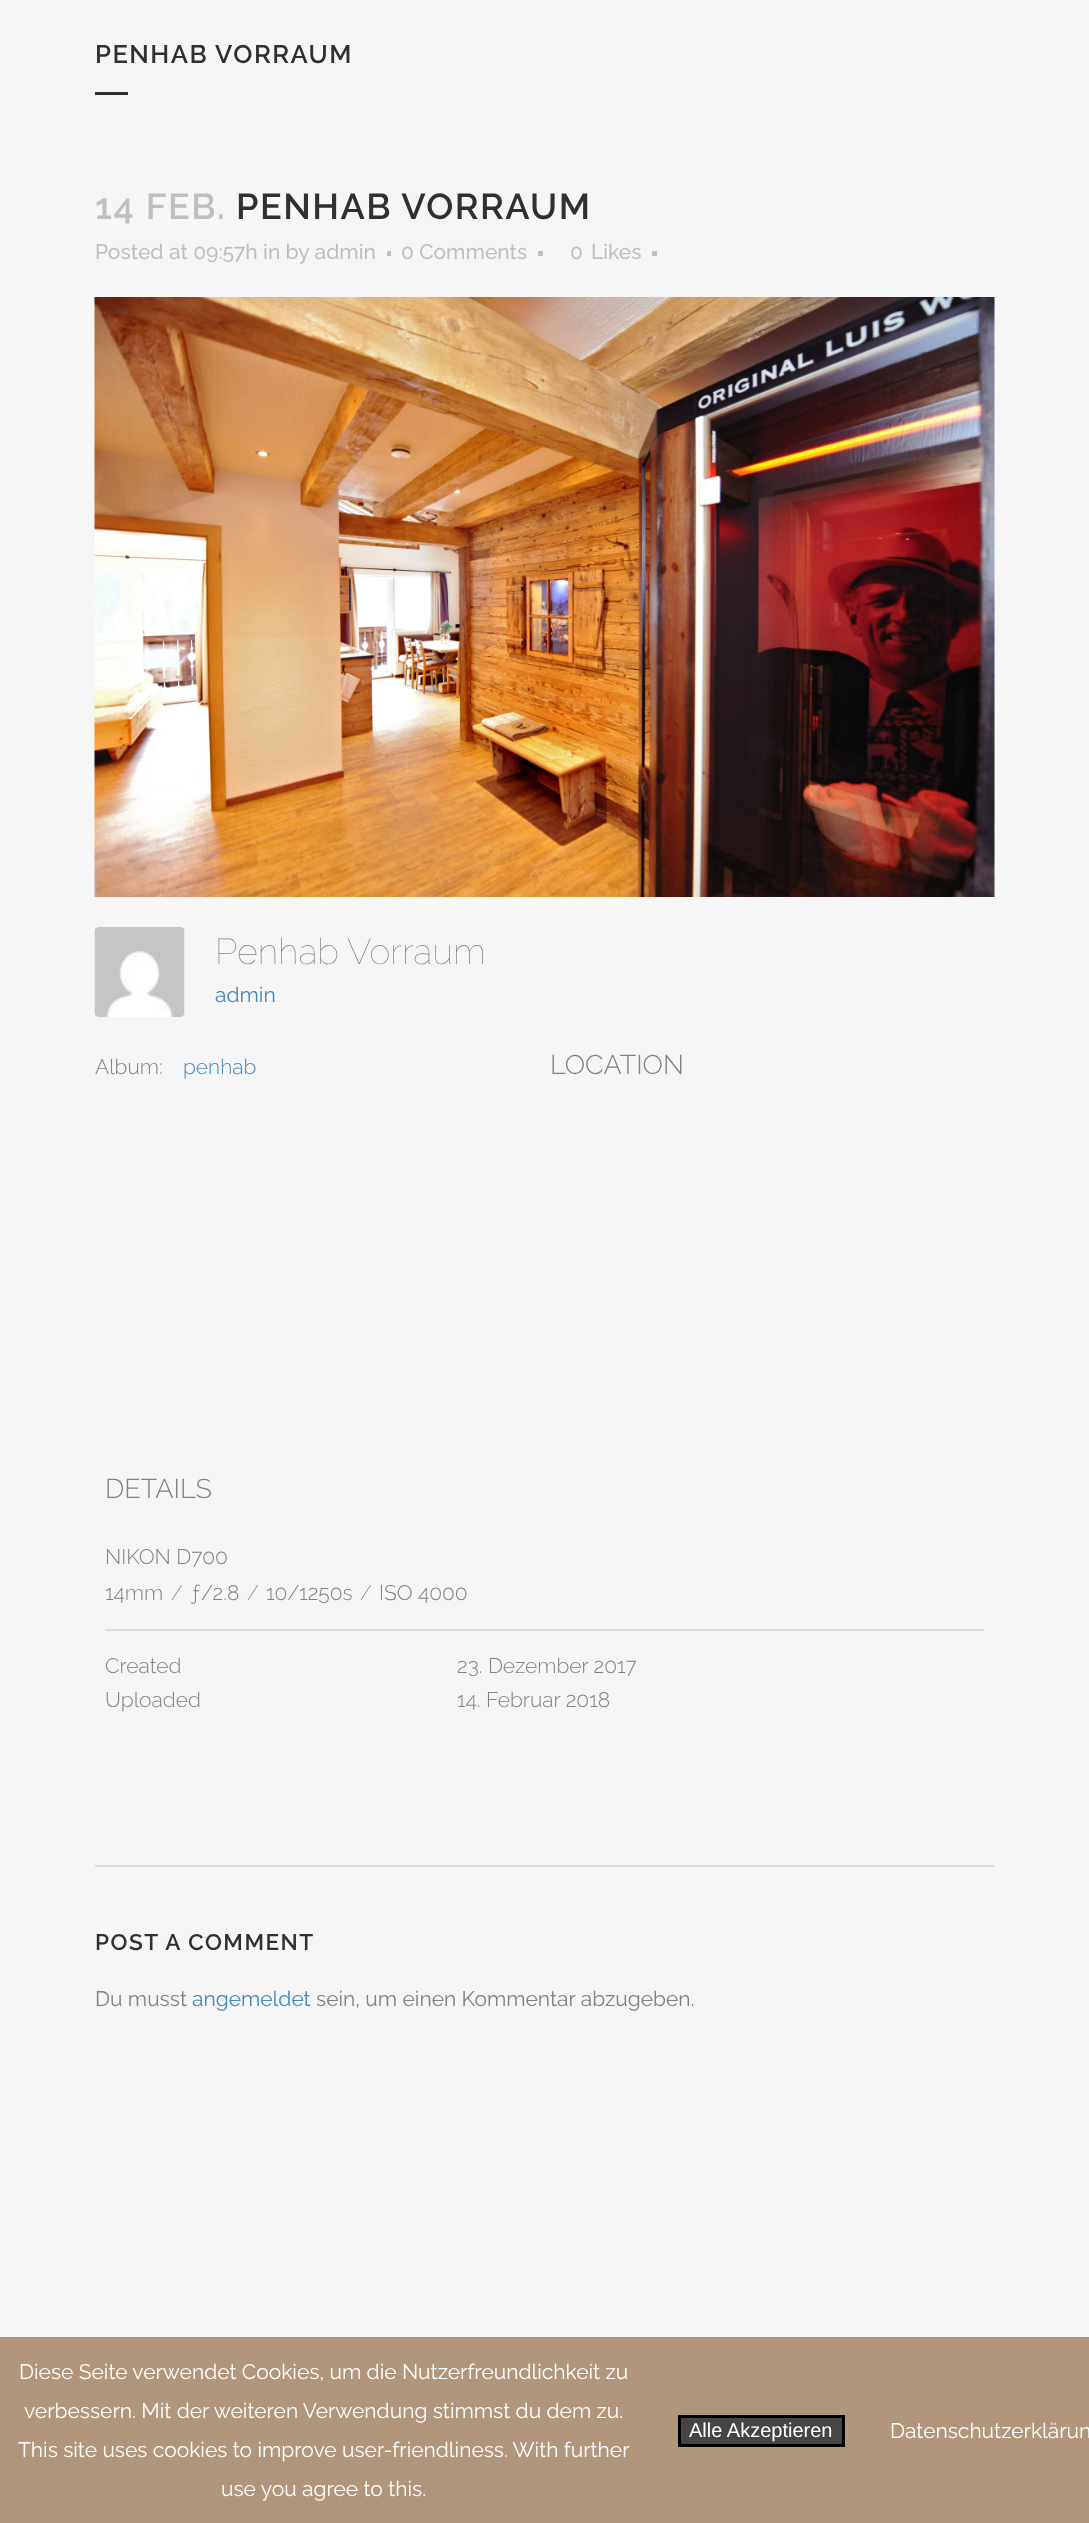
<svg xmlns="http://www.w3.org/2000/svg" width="1089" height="2523">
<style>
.a{font:600 25.5px Raleway;letter-spacing:1.5px;fill:#303030}
.b{font:600 36px Raleway;letter-spacing:1.5px;fill:#bebebe}
.c{font:600 36px Raleway;letter-spacing:1.5px;fill:#303030}
.d{font:500 21px Raleway;fill:#bebebe}
.e{font:100 36px Raleway;fill:#818181}
.f{font:21px Raleway;fill:#4486bf}
.g{font:300 21px Raleway;fill:#818181}
.h{font:300 21px Raleway;fill:#4486bf}
.i{font:300 27px Raleway;fill:#818181}
.j{font:200 21px Raleway;fill:#818181}
.k{font:600 22.5px Raleway;letter-spacing:1.5px;fill:#303030}
.l{font:21px Raleway;fill:#818181}
.m{font:21px Raleway;fill:#fff}
.n{font:20px Liberation Sans;fill:#fff}
</style>
<rect width="100%" height="100%" fill="#f6f6f6"/>
<path fill="#303030" d="M95 92h33v3H95z"/>
<path fill="#bebebe" d="M387 251h4v5H387z"/>
<path fill="#bebebe" d="M538 251h5v5H538z"/>
<path fill="#bebebe" d="M652 251h5v5H652z"/>
<image href="1.png" x="94" y="297" width="901" height="600"/>
<image href="2.png" x="94" y="927" width="91" height="90"/>
<path fill="#ddd" d="M105 1629h879v2H105z"/>
<path fill="#ddd" d="M95 1865h900v2H95z"/>
<path fill="#b0967c" d="M0 2337h1089v186H0z"/>
<path fill="#464544" stroke="#000" stroke-width="3" d="M679.5 2416.5h164v29H679.5z"/>
<text class="a" x="95" y="63">PENHAB VORRAUM</text>
<text class="b" x="95" y="219">14 FEB.</text>
<text class="c" x="236" y="219">PENHAB VORRAUM</text>
<text class="d" x="95" y="259">Posted at 09:57h in by admin</text>
<text class="d" x="401" y="259">0 Comments</text>
<text class="d" x="570" y="259">0</text>
<text class="d" x="591" y="259">Likes</text>
<text class="e" x="215" y="964">Penhab Vorraum</text>
<text class="f" x="215" y="1002">admin</text>
<text class="g" x="95" y="1074">Album:</text>
<text class="h" x="183" y="1074">penhab</text>
<text class="i" x="550" y="1074">LOCATION</text>
<text class="i" x="105" y="1498">DETAILS</text>
<text class="g" x="105" y="1564">NIKON D700</text>
<text class="g" x="105" y="1600">14mm</text>
<text class="j" x="171" y="1600">/</text>
<text class="g" x="190" y="1600">ƒ/2.8</text>
<text class="j" x="247" y="1600">/</text>
<text class="g" x="266" y="1600">10/1250s</text>
<text class="j" x="360" y="1600">/</text>
<text class="g" x="379" y="1600">ISO 4000</text>
<text class="g" x="105" y="1673">Created</text>
<text class="g" x="457" y="1673">23. Dezember 2017</text>
<text class="g" x="105" y="1707">Uploaded</text>
<text class="g" x="457" y="1707">14. Februar 2018</text>
<text class="k" x="95" y="1950">POST A COMMENT</text>
<text class="l" x="95" y="2006">Du musst</text>
<text class="f" x="192" y="2006">angemeldet</text>
<text class="l" x="316" y="2006">sein, um einen Kommentar abzugeben.</text>
<text class="m" x="19" y="2379">Diese Seite verwendet Cookies, um die Nutzerfreundlichkeit zu</text>
<text class="m" x="24" y="2418">verbessern. Mit der weiteren Verwendung stimmst du dem zu.</text>
<text class="m" x="18" y="2457">This site uses cookies to improve user-friendliness. With further</text>
<text class="m" x="221" y="2496">use you agree to this.</text>
<text class="n" x="689" y="2437">Alle Akzeptieren</text>
<text class="m" x="890" y="2438">Datenschutzerklärun</text>
</svg>
